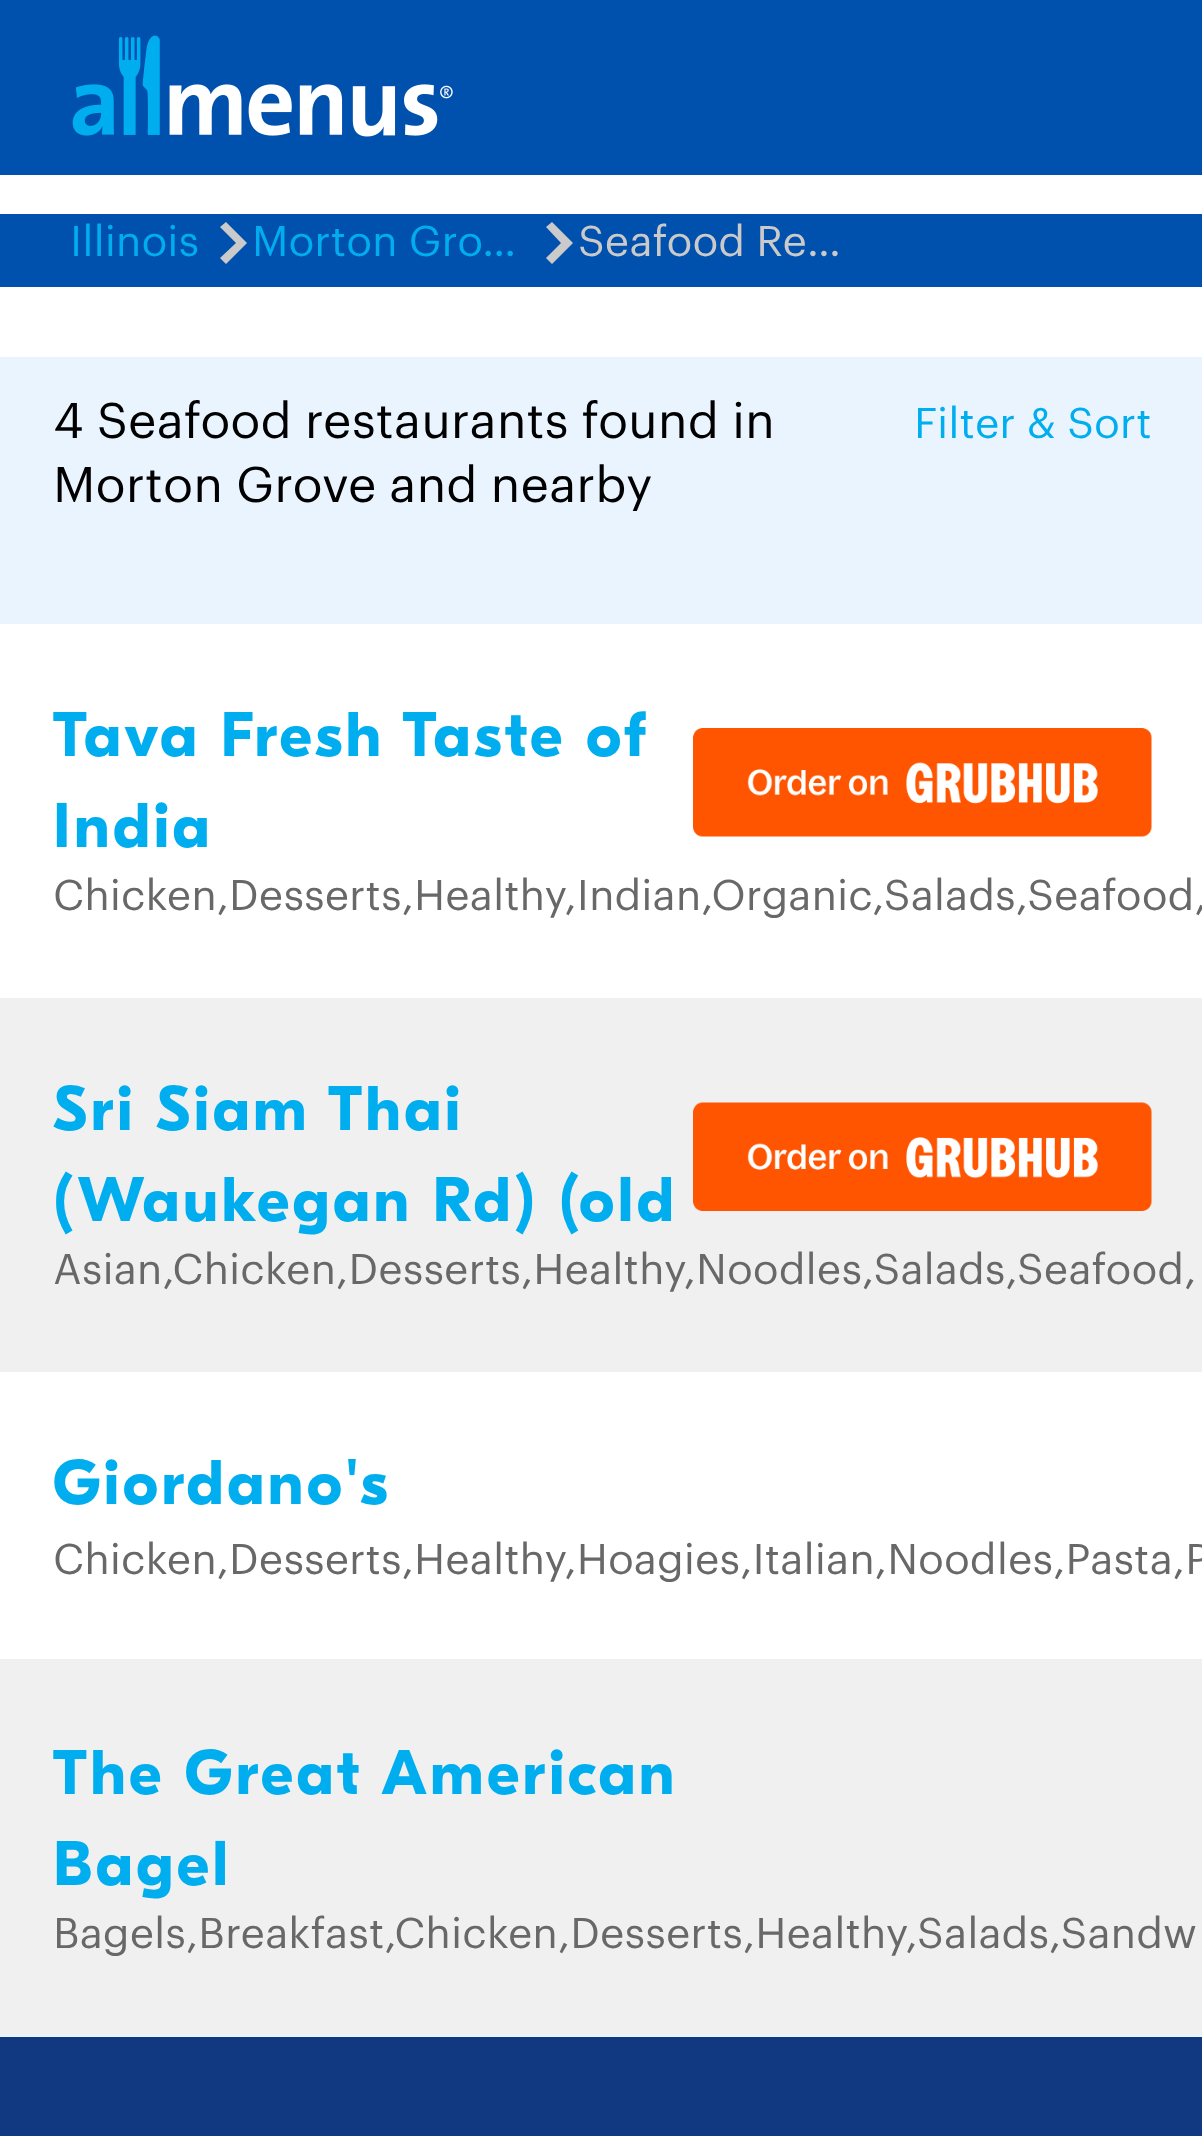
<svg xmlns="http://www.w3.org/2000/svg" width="1202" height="2136">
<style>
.a{font:42px Graphik;fill:#00aeef}
.b{font:42px Graphik;fill:#cacaca}
.c{font:49px Graphik;fill:#000}
.d{font:bold 63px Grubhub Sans;letter-spacing:3.5px;fill:#00aeef}
.e{font:42px Graphik;fill:#686868}
</style>
<defs>
<clipPath id="clip1"><path d="M53 693h640v175H53z"/></clipPath>
<clipPath id="clip2"><path d="M53 1729h640v175H53z"/></clipPath>
</defs>
<rect width="100%" height="100%" fill="#fff"/>
<path fill="#0050ad" d="M0 0h1202v175H0z"/>
<image href="1.png" x="72" y="35" width="381" height="102"/>
<path fill="#0050ad" d="M0 214h1202v73H0z"/>
<path fill="#cacaca" d="M220 258l6 6l21-21l-21-21l-6 5l16 16z"/>
<path fill="#cacaca" d="M546 258l6 6l21-21l-21-21l-6 5l15 16z"/>
<path fill="#eaf4ff" d="M0 357h1202v267H0z"/>
<path fill="#eaf4ff" d="M0 2034h1202v3H0z"/>
<image href="2.png" x="693" y="728" width="459" height="109"/>
<path fill="#f0f0f0" d="M0 998h1202v374H0z"/>
<image href="3.png" x="693" y="1102" width="459" height="109"/>
<path fill="#f0f0f0" d="M0 1659h1202v375H0z"/>
<path fill="#113981" d="M0 2037h1202v99H0z"/>
<text class="a" x="70" y="256">Illinois</text>
<text class="a" x="252" y="256">Morton Gro…</text>
<text class="b" x="578" y="256">Seafood Re…</text>
<text class="c" x="53" y="438">4 Seafood restaurants found in</text>
<text class="c" x="53" y="502">Morton Grove and nearby</text>
<text class="a" x="914" y="438">Filter &amp; Sort</text>
<g clip-path="url(#clip1)">
<text class="d" x="53" y="756">Tava Fresh Taste of</text>
</g>
<text class="d" x="53" y="847">India</text>
<text class="e" x="53" y="910">Chicken,Desserts,Healthy,Indian,Organic,Salads,Seafood,</text>
<text class="d" x="53" y="1130">Sri Siam Thai</text>
<text class="d" x="53" y="1221">(Waukegan Rd) (old</text>
<text class="e" x="53" y="1284">Asian,Chicken,Desserts,Healthy,Noodles,Salads,Seafood,</text>
<text class="d" x="53" y="1504">Giordano's</text>
<text class="e" x="53" y="1574">Chicken,Desserts,Healthy,Hoagies,Italian,Noodles,Pasta,P</text>
<g clip-path="url(#clip2)">
<text class="d" x="53" y="1794">The Great American</text>
</g>
<text class="d" x="53" y="1885">Bagel</text>
<text class="e" x="53" y="1948">Bagels,Breakfast,Chicken,Desserts,Healthy,Salads,Sandw</text>
</svg>
